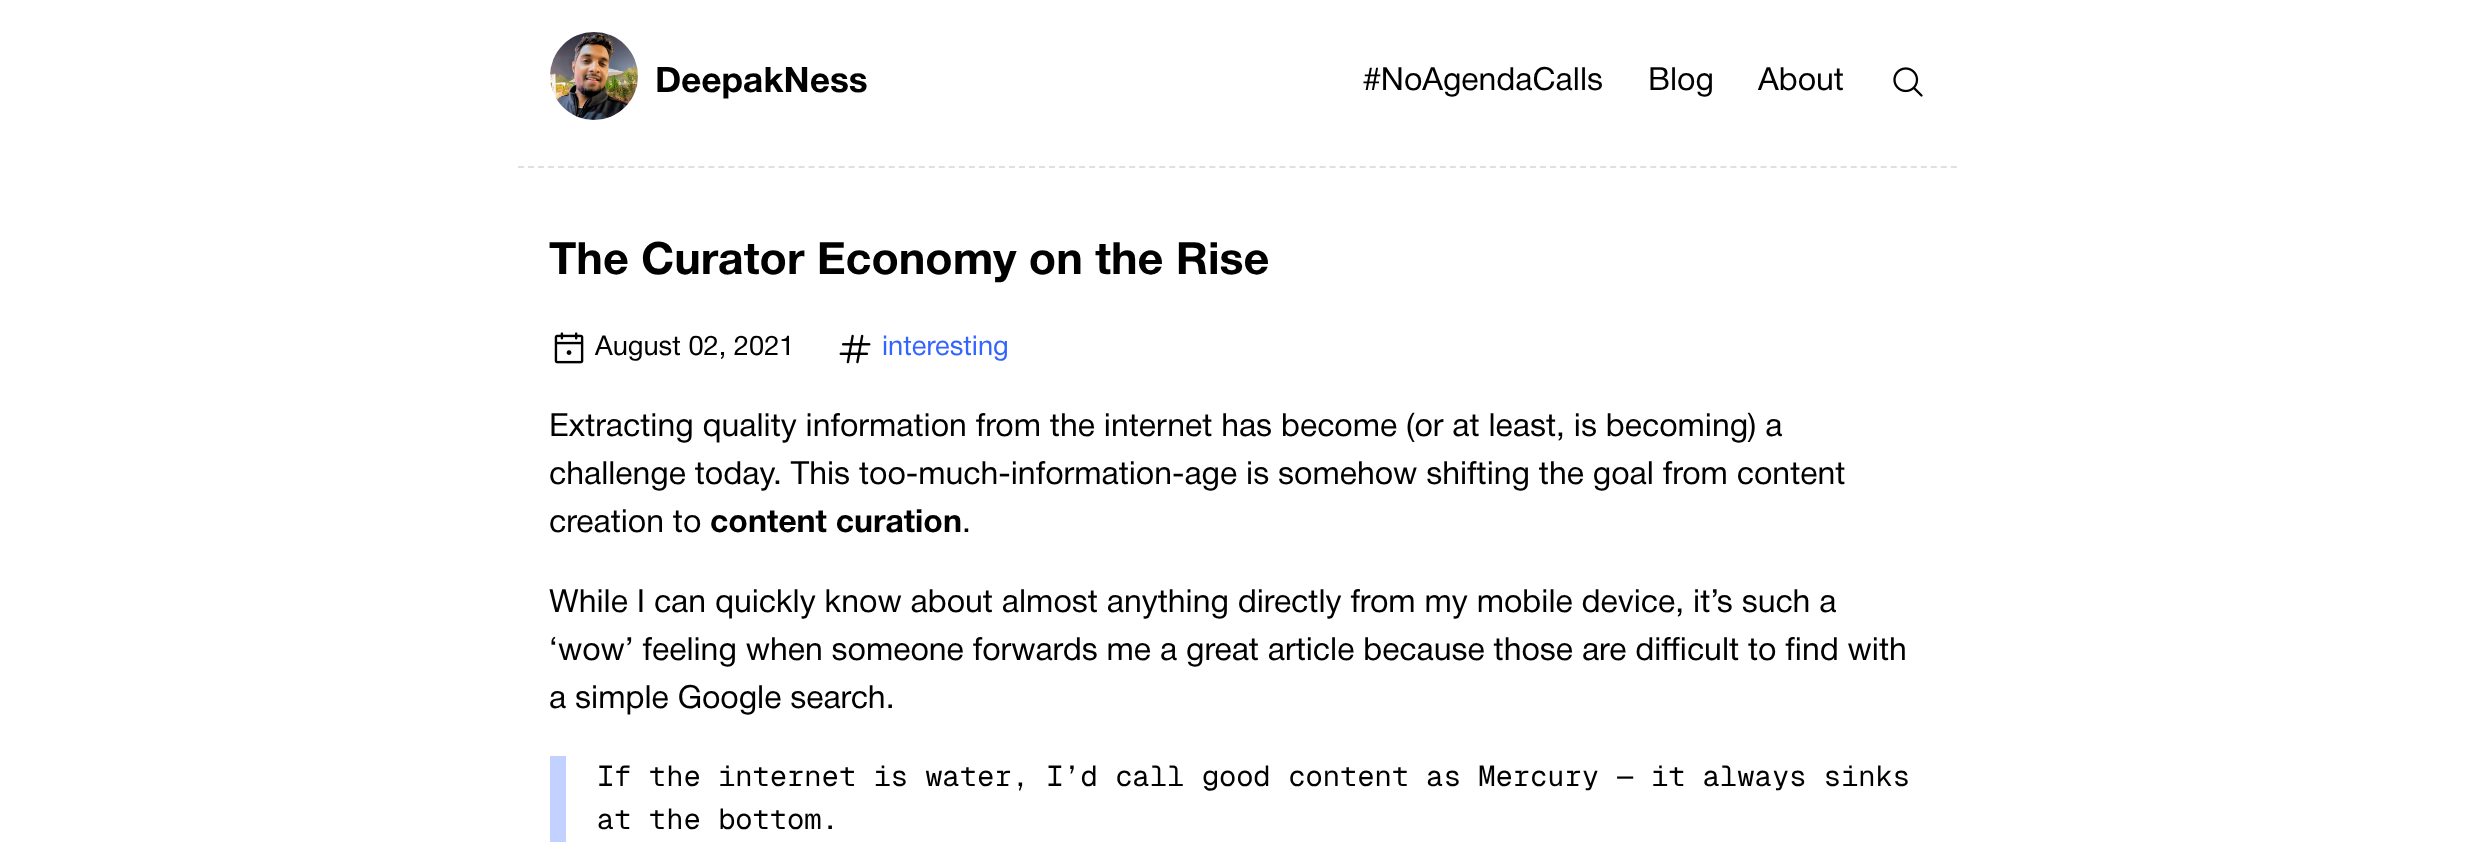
<svg xmlns="http://www.w3.org/2000/svg" width="2473" height="855">
<style>
.a{font:bold 35.25px Helvetica Neue;fill:#000}
.b{font:32px Helvetica Neue;fill:#000}
.c{font:bold 44.75px Helvetica Neue;fill:#000}
.d{font:27.25px Helvetica Neue;fill:#000}
.e{font:27.25px Helvetica Neue;fill:#3364ff}
.f{font:bold 32px Helvetica Neue;fill:#000}
.g{font:28.8px Geist Mono;fill:#000}
</style>
<rect width="100%" height="100%" fill="#fff"/>
<path fill="none" stroke="#e0e0e0" stroke-width="2" stroke-dasharray="6 4.02" d="M518 167h1440"/>
<image href="1.png" x="550" y="32" width="88" height="88"/>
<image href="2.png" x="1893" y="67" width="30" height="30"/>
<image href="3.png" x="554" y="332" width="30" height="32"/>
<image href="4.png" x="839" y="334" width="32" height="30"/>
<path fill="#c2d1ff" d="M550 756h16v86H550z"/>
<text class="a" x="655" y="92">DeepakNess</text>
<text class="b" x="1363" y="90">#NoAgendaCalls</text>
<text class="b" x="1648" y="90">Blog</text>
<text class="b" x="1758" y="90">About</text>
<text class="c" x="549" y="274">The Curator Economy on the Rise</text>
<text class="d" x="595" y="355">August 02, 2021</text>
<text class="e" x="882" y="355">interesting</text>
<text class="b" x="549" y="436">Extracting quality information from the internet has become (or at least, is becoming) a</text>
<text class="b" x="549" y="484">challenge today. This too-much-information-age is somehow shifting the goal from content</text>
<text class="b" x="549" y="532">creation to</text>
<text class="f" x="710" y="532">content curation</text>
<text class="b" x="962" y="532">.</text>
<text class="b" x="549" y="612">While I can quickly know about almost anything directly from my mobile device, it’s such a</text>
<text class="b" x="549" y="660">‘wow’ feeling when someone forwards me a great article because those are difficult to find with</text>
<text class="b" x="549" y="708">a simple Google search.</text>
<text class="g" x="597" y="786">If the internet is water, I’d call good content as Mercury — it always sinks</text>
<text class="g" x="597" y="829">at the bottom.</text>
</svg>
